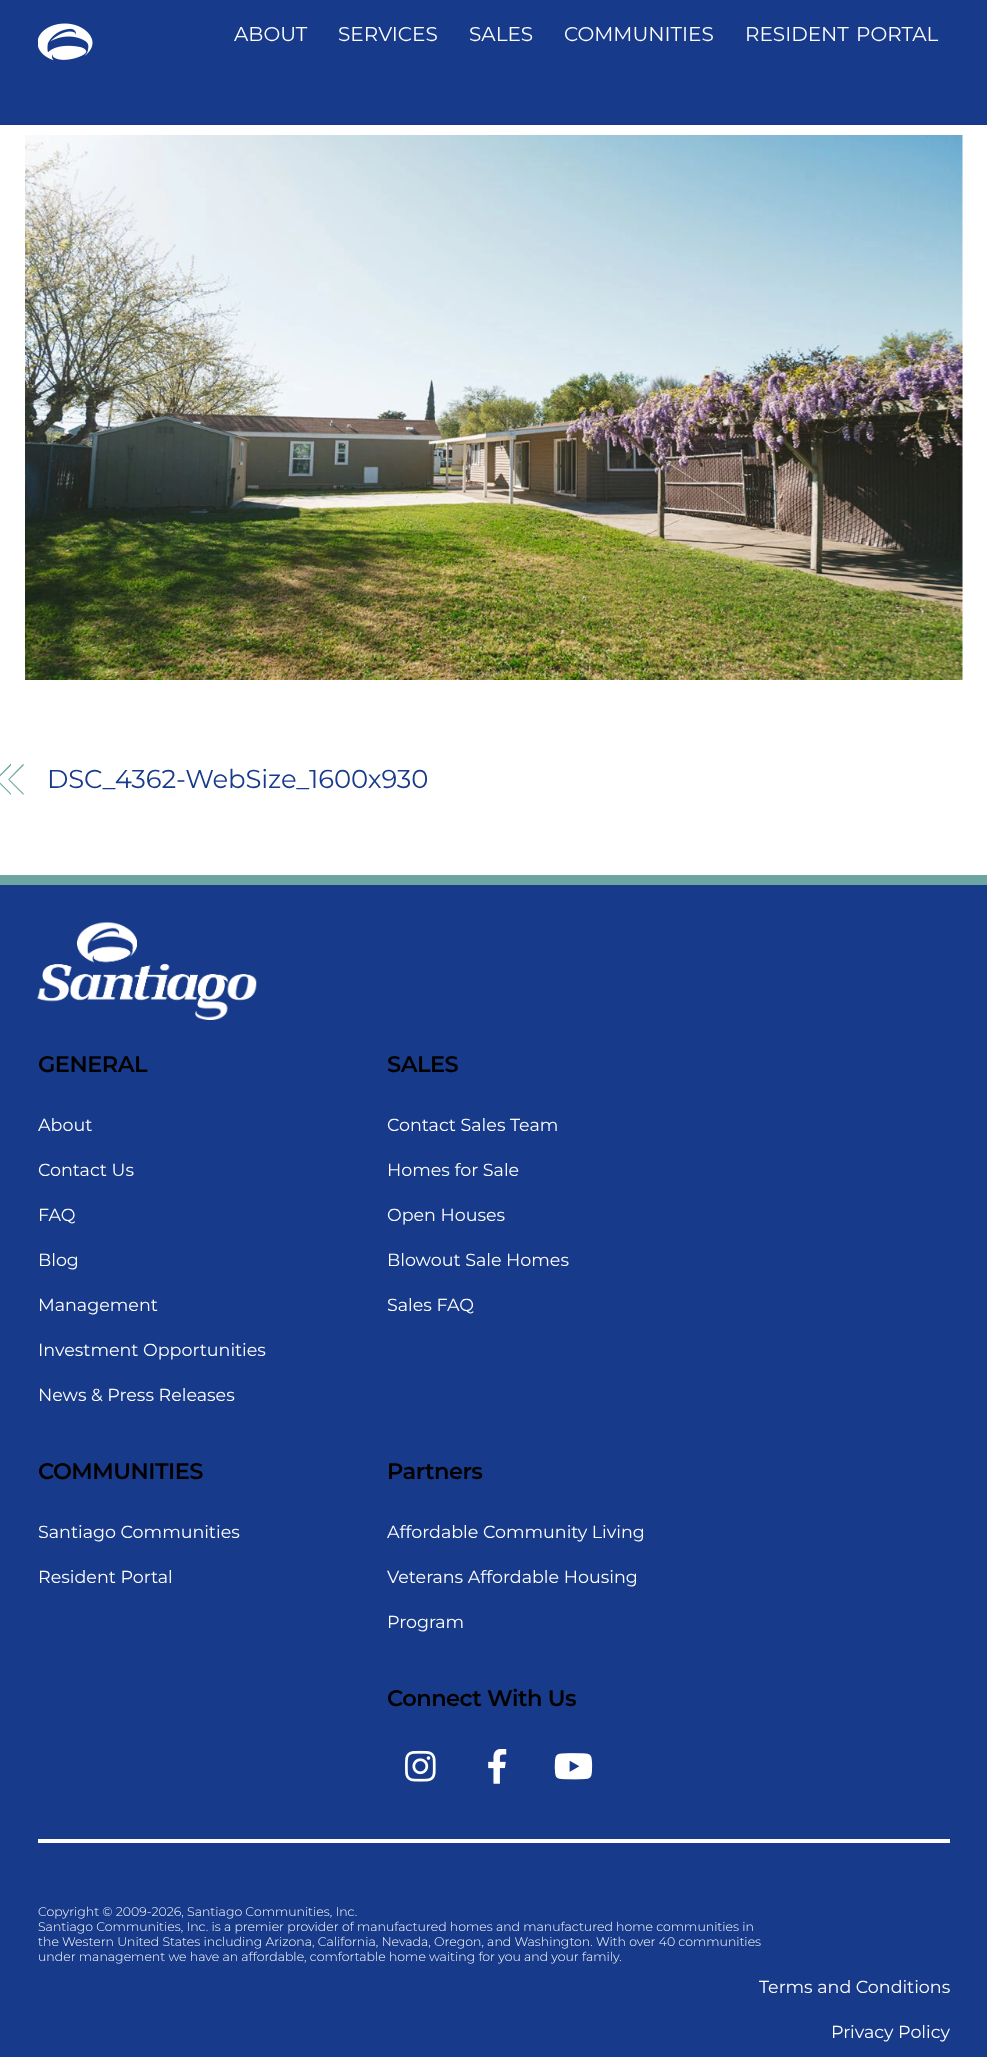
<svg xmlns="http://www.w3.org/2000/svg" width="987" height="2057">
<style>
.a{font:20px Montserrat;fill:#fff}
.b{font:25.9px Montserrat;letter-spacing:-0.1px;fill:#173a8a}
.c{font:600 22.5px Montserrat;letter-spacing:-0.5px;fill:#000}
.d{font:17.5px Montserrat;fill:#fff}
.e{font:300 12.5px Montserrat;fill:#fff}
</style>
<rect width="100%" height="100%" fill="#fff"/>
<path fill="#173a8a" d="M0 0h987v124H0z"/>
<path fill="#163783" d="M0 124h987v1H0z"/>
<image href="1.png" x="38" y="23" width="55" height="38"/>
<image href="2.png" x="25" y="135" width="938" height="545"/>
<path fill="#6da6a0" d="M-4.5 779.5l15.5-16v2l-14 14zm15.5 15.5l-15.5-15.5h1.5l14 14z"/>
<path fill="#6da6a0" d="M8 779.5l15.5-16v2l-14 14z"/>
<path fill="#6da6a0" d="M23.5 795l-15.5-15.5h1.5l14 14z"/>
<path fill="#173a8a" d="M0 885h987v1172H0z"/>
<path fill="#6da6a0" d="M0 875h987v10H0z"/>
<image href="3.png" x="37" y="922" width="220" height="98"/>
<image href="4.png" x="405" y="1750" width="31" height="32"/>
<image href="5.png" x="488" y="1749" width="19" height="35"/>
<image href="6.png" x="554" y="1753" width="39" height="27"/>
<path fill="#fff" d="M38 1839h912v4H38z"/>
<text class="a" x="234" y="41">ABOUT</text>
<text class="a" x="338" y="41">SERVICES</text>
<text class="a" x="469" y="41">SALES</text>
<text class="a" x="564" y="41">COMMUNITIES</text>
<text class="a" x="745" y="41" word-spacing="2">RESIDENT PORTAL</text>
<text class="b" x="47" y="788">DSC_4362-WebSize_1600x930</text>
<text class="c" x="38" y="1072">GENERAL</text>
<text class="d" x="38" y="1131">About</text>
<text class="d" x="38" y="1176">Contact Us</text>
<text class="d" x="38" y="1221">FAQ</text>
<text class="d" x="38" y="1266">Blog</text>
<text class="d" x="38" y="1311">Management</text>
<text class="d" x="38" y="1356">Investment Opportunities</text>
<text class="d" x="38" y="1401">News &amp; Press Releases</text>
<text class="c" x="387" y="1072">SALES</text>
<text class="d" x="387" y="1131">Contact Sales Team</text>
<text class="d" x="387" y="1176">Homes for Sale</text>
<text class="d" x="387" y="1221">Open Houses</text>
<text class="d" x="387" y="1266">Blowout Sale Homes</text>
<text class="d" x="387" y="1311">Sales FAQ</text>
<text class="c" x="38" y="1479">COMMUNITIES</text>
<text class="d" x="38" y="1538">Santiago Communities</text>
<text class="d" x="38" y="1583">Resident Portal</text>
<text class="c" x="387" y="1479">Partners</text>
<text class="d" x="387" y="1538">Affordable Community Living</text>
<text class="d" x="387" y="1583">Veterans Affordable Housing</text>
<text class="d" x="387" y="1628">Program</text>
<text class="c" x="387" y="1706">Connect With Us</text>
<text class="e" x="38" y="1916">Copyright © 2009-2026, Santiago Communities, Inc.</text>
<text class="e" x="38" y="1931">Santiago Communities, Inc. is a premier provider of manufactured homes and manufactured home communities in</text>
<text class="e" x="38" y="1946">the Western United States including Arizona, California, Nevada, Oregon, and Washington. With over 40 communities</text>
<text class="e" x="38" y="1961">under management we have an affordable, comfortable home waiting for you and your family.</text>
<text class="d" x="759" y="1993">Terms and Conditions</text>
<text class="d" x="831" y="2038">Privacy Policy</text>
</svg>
